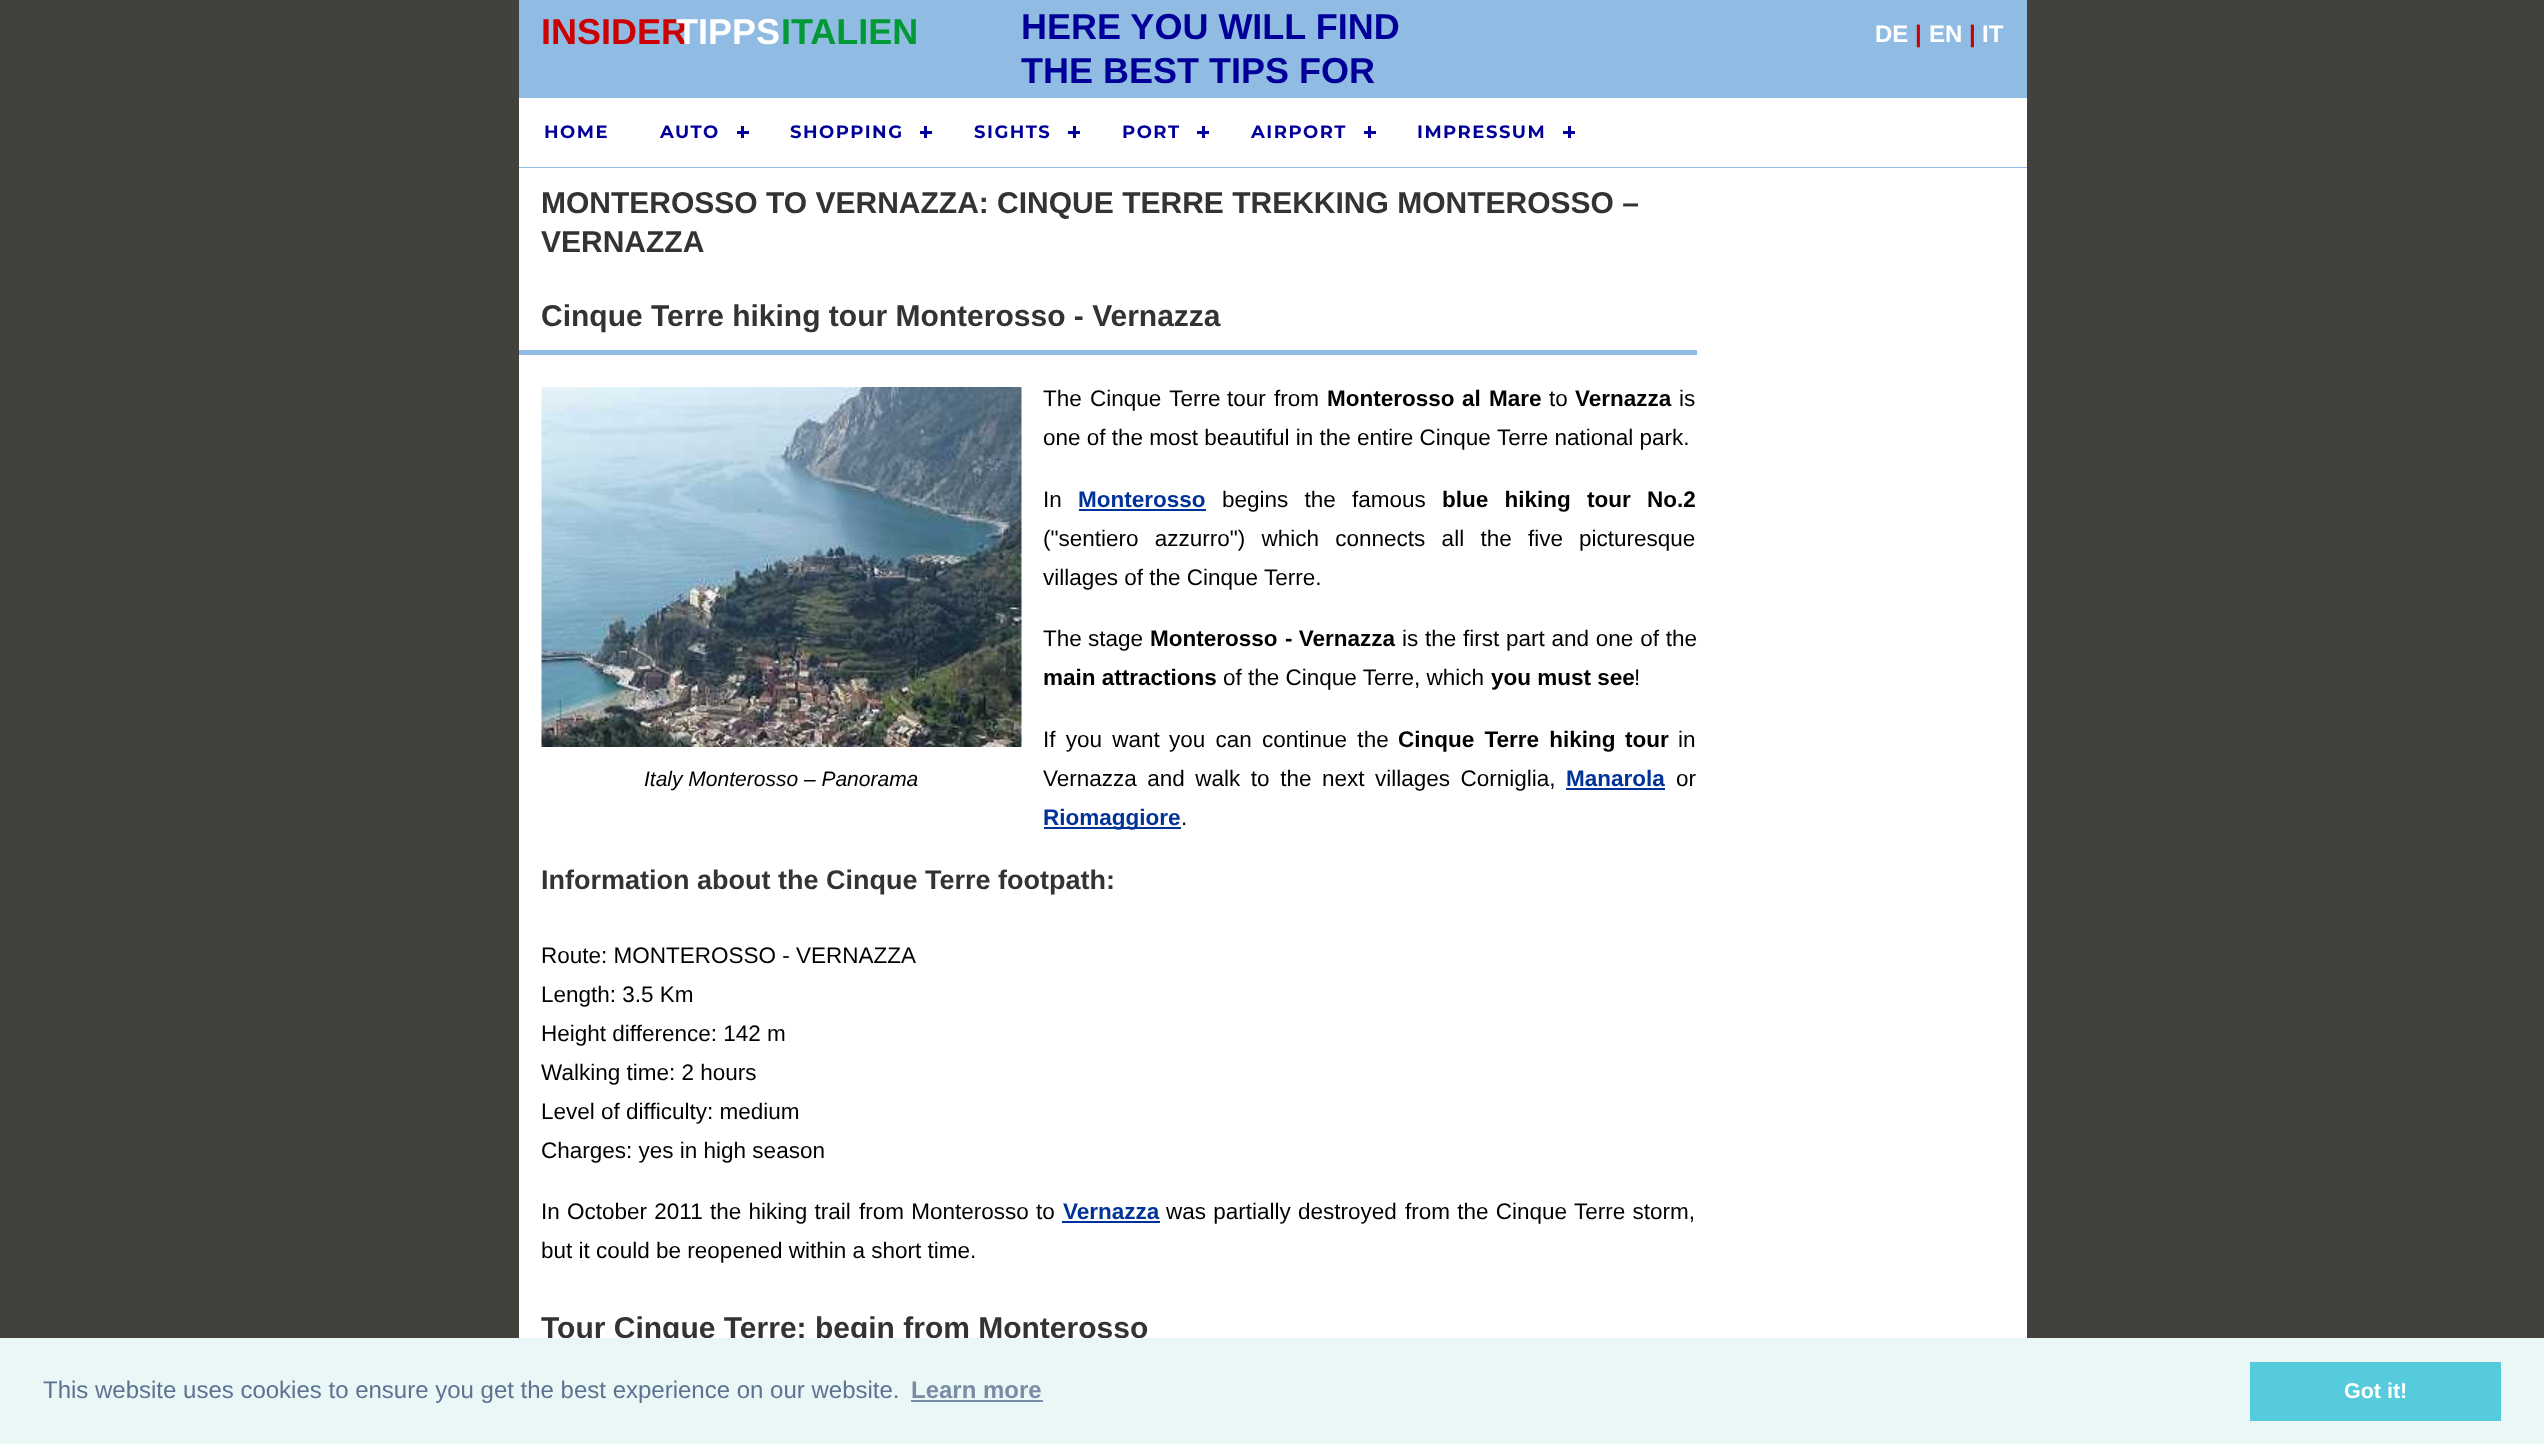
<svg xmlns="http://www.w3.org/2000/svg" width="2544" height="1444">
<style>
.a{font:bold 36px Liberation Sans;fill:#c00}
.b{font:bold 36px Liberation Sans;fill:#fff}
.c{font:bold 36px Liberation Sans;fill:#093}
.d{font:bold 36px Liberation Sans;fill:#009}
.e{font:bold 24px Liberation Sans;fill:#fff}
.f{font:bold 24px Liberation Sans;fill:#c00}
.g{font:bold 18px Montserrat;letter-spacing:1.5px;fill:#009}
.h{font:bold 30px Liberation Sans;fill:#333}
.i{font:22.5px Liberation Sans;fill:#000}
.j{font:bold 22.5px Liberation Sans;fill:#000}
.k{font:bold 22.5px Liberation Sans;fill:#039}
.l{font:italic 21px Liberation Sans;fill:#000}
.m{font:bold 27px Liberation Sans;fill:#333}
.n{font:24px Liberation Sans;fill:#5c7291}
.o{font:bold 24px Liberation Sans;fill:#788da5}
.p{font:bold 21.5px Liberation Sans;fill:#fff}
</style>
<rect width="100%" height="100%" fill="#42413c"/>
<path fill="#fff" d="M519 168h1508v1170H519z"/>
<path fill="#90bce3" d="M519 0h1508v168H519z"/>
<path fill="#fff" d="M519 98h1508v69H519z"/>
<path fill="#009" d="M741 126h3v12H741z"/>
<path fill="#009" d="M737 131h12v3H737z"/>
<path fill="#009" d="M924 126h3v12H924z"/>
<path fill="#009" d="M920 131h12v3H920z"/>
<path fill="#009" d="M1073 126h3v12H1073z"/>
<path fill="#009" d="M1068 131h12v3H1068z"/>
<path fill="#009" d="M1202 126h3v12H1202z"/>
<path fill="#009" d="M1197 131h12v3H1197z"/>
<path fill="#009" d="M1368 126h3v12H1368z"/>
<path fill="#009" d="M1364 131h12v3H1364z"/>
<path fill="#009" d="M1568 126h3v12H1568z"/>
<path fill="#009" d="M1563 131h12v3H1563z"/>
<path fill="#90bce3" d="M519 350h1178v5H519z"/>
<path fill="#039" d="M1079 509h127v2H1079z"/>
<image href="1.png" x="541" y="387" width="481" height="360"/>
<path fill="#039" d="M1566 788h99v2H1566z"/>
<path fill="#039" d="M1044 827h137v2H1044z"/>
<path fill="#039" d="M1062 1221h98v2H1062z"/>
<text class="a" x="541" y="44">INSIDER</text>
<text class="b" x="676" y="44">TIPPS</text>
<text class="c" x="781" y="44">ITALIEN</text>
<text class="d" x="1021" y="39">HERE YOU WILL FIND</text>
<text class="d" x="1021" y="83">THE BEST TIPS FOR</text>
<text class="e" x="1875" y="42">DE</text>
<text class="f" x="1915" y="42">|</text>
<text class="e" x="1929" y="42">EN</text>
<text class="f" x="1969" y="42">|</text>
<text class="e" x="1982" y="42">IT</text>
<text class="g" x="544" y="138">HOME</text>
<text class="g" x="660" y="138">AUTO</text>
<text class="g" x="790" y="138">SHOPPING</text>
<text class="g" x="974" y="138">SIGHTS</text>
<text class="g" x="1122" y="138">PORT</text>
<text class="g" x="1251" y="138">AIRPORT</text>
<text class="g" x="1417" y="138">IMPRESSUM</text>
<text class="h" x="541" y="213">MONTEROSSO TO VERNAZZA: CINQUE TERRE TREKKING MONTEROSSO –</text>
<text class="h" x="541" y="252">VERNAZZA</text>
<text class="h" x="541" y="326">Cinque Terre hiking tour Monterosso - Vernazza</text>
<text class="i" x="1043" y="406" word-spacing="2">The Cinque Terre</text>
<text class="i" x="1227" y="406" word-spacing="2">tour from</text>
<text class="j" x="1327" y="406">Monterosso</text>
<text class="j" x="1462" y="406" word-spacing="2">al Mare</text>
<text class="i" x="1549" y="406">to</text>
<text class="j" x="1575" y="406">Vernazza</text>
<text class="i" x="1679" y="406">is</text>
<text class="i" x="1043" y="445">one of the most beautiful in the entire Cinque</text>
<text class="i" x="1497" y="445">Terre national park.</text>
<text class="i" x="1043" y="507">In</text>
<text class="k" x="1078" y="507">Monterosso</text>
<text class="i" x="1222" y="507" word-spacing="10">begins the famous</text>
<text class="j" x="1442" y="507" word-spacing="10">blue hiking tour</text>
<text class="j" x="1647" y="507">No.2</text>
<text class="i" x="1043" y="546" word-spacing="10">("sentiero azzurro") which connects all the five</text>
<text class="i" x="1579" y="546">picturesque</text>
<text class="i" x="1043" y="585">villages of the Cinque Terre.</text>
<text class="i" x="1043" y="646">The stage</text>
<text class="j" x="1150" y="646">Monterosso</text>
<text class="j" x="1285" y="646">- Vernazza</text>
<text class="i" x="1402" y="646" word-spacing="0.5">is the first part and one of the</text>
<text class="j" x="1043" y="685">main attractions</text>
<text class="i" x="1223" y="685">of the Cinque Terre, which</text>
<text class="j" x="1491" y="685">you must see</text>
<text class="i" x="1634" y="685">!</text>
<text class="l" x="644" y="786">Italy Monterosso – Panorama</text>
<text class="i" x="1043" y="747" word-spacing="4">If you want</text>
<text class="i" x="1169" y="747" word-spacing="4">you can continue the</text>
<text class="j" x="1398" y="747" word-spacing="4">Cinque Terre hiking</text>
<text class="j" x="1625" y="747">tour</text>
<text class="i" x="1678" y="747">in</text>
<text class="i" x="1043" y="786" word-spacing="4.25">Vernazza and walk to the next villages Corniglia,</text>
<text class="k" x="1566" y="786">Manarola</text>
<text class="i" x="1676" y="786">or</text>
<text class="k" x="1043" y="825">Riomaggiore</text>
<text class="i" x="1181" y="825">.</text>
<text class="m" x="541" y="889">Information about the Cinque Terre footpath:</text>
<text class="i" x="541" y="963">Route: MONTEROSSO - VERNAZZA</text>
<text class="i" x="541" y="1002">Length: 3.5 Km</text>
<text class="i" x="541" y="1041">Height difference: 142 m</text>
<text class="i" x="541" y="1080">Walking time: 2 hours</text>
<text class="i" x="541" y="1119">Level of difficulty: medium</text>
<text class="i" x="541" y="1158">Charges: yes in high season</text>
<text class="i" x="541" y="1219" word-spacing="1">In October 2011 the hiking trail</text>
<text class="i" x="859" y="1219" word-spacing="1">from Monterosso to</text>
<text class="k" x="1063" y="1219">Vernazza</text>
<text class="i" x="1166" y="1219" word-spacing="1">was partially destroyed</text>
<text class="i" x="1405" y="1219" word-spacing="1">from the Cinque Terre storm,</text>
<text class="i" x="541" y="1258">but it could be reopened within a short time.</text>
<text class="h" x="541" y="1338">Tour Cinque Terre: begin from Monterosso</text>
<path fill="#eaf7f7" d="M0 1338h2544v106H0z"/>
<text class="n" x="43" y="1398">This website uses cookies to ensure you get the best experience on our website.</text>
<text class="o" x="911" y="1398">Learn more</text>
<path fill="#788da5" d="M911 1400h132v2H911z"/>
<path fill="#56cbdb" d="M2250 1362h251v59H2250z"/>
<text class="p" x="2344" y="1398">Got it!</text>
</svg>
